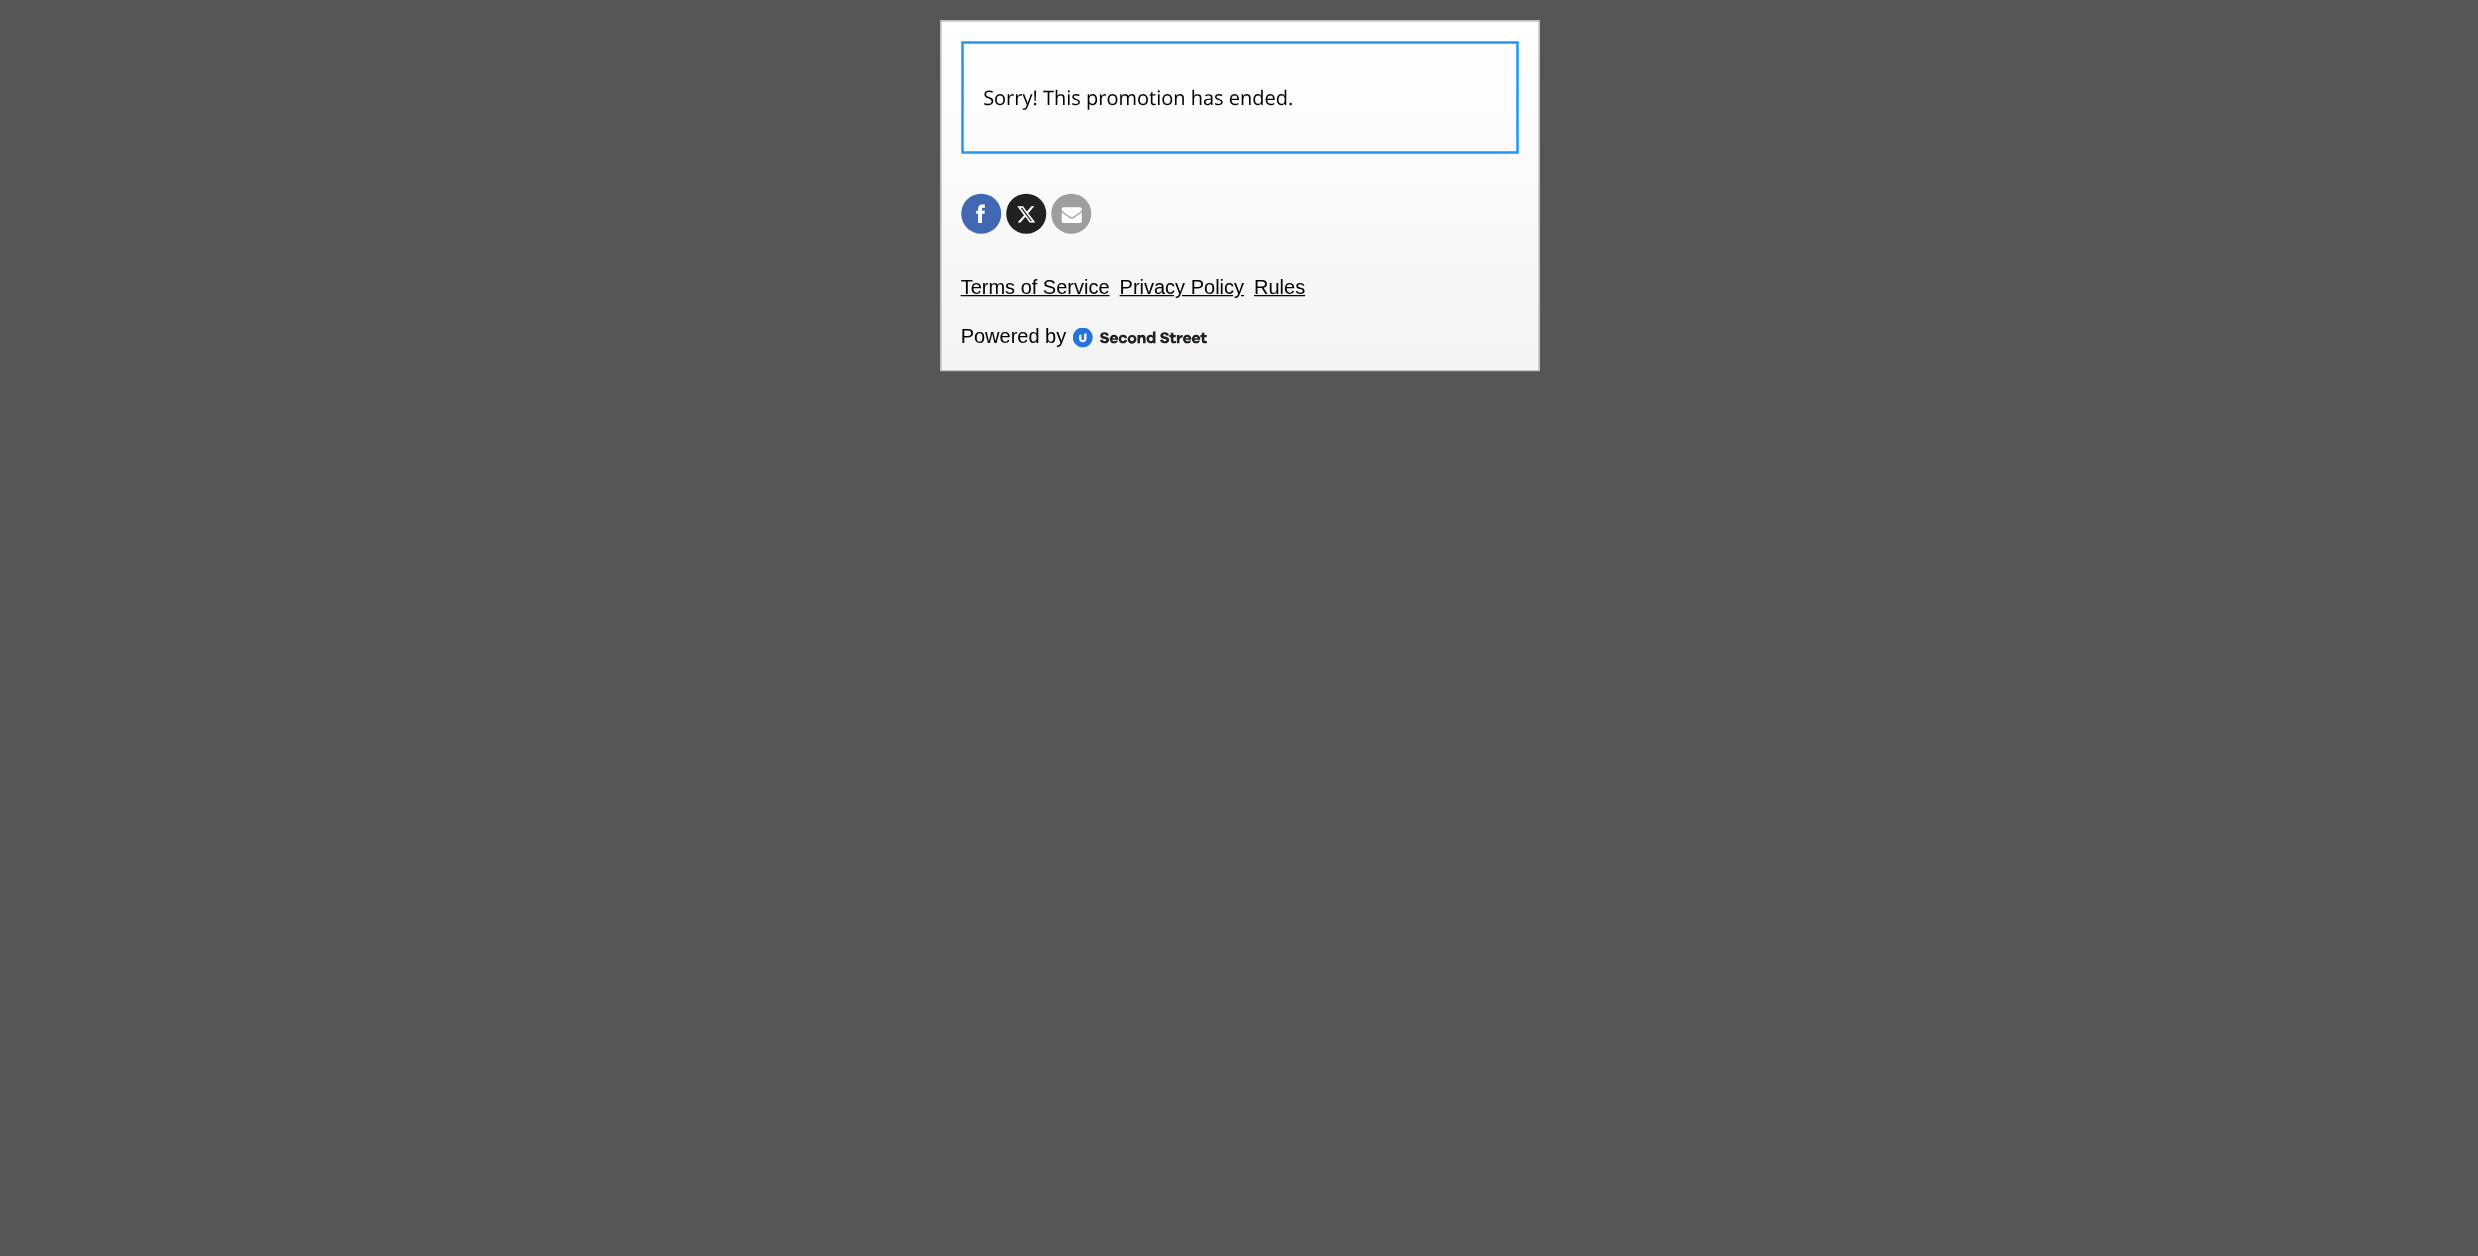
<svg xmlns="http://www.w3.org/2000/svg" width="2478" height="1256">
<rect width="100%" height="100%" fill="#555"/>
<image href="1.png" x="940" y="20" width="600" height="352"/>
</svg>
